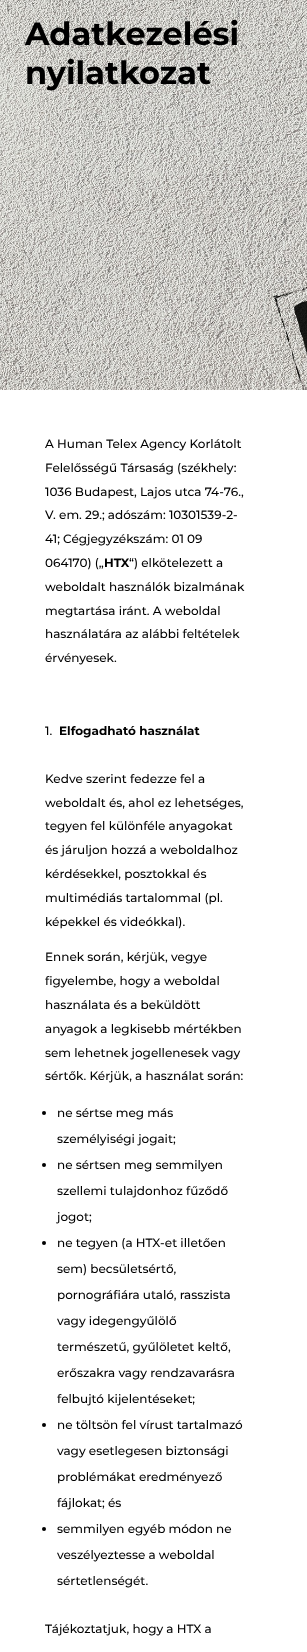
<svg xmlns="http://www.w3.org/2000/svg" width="307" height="1652">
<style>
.a{font:bold 32px Montserrat;fill:#000}
.b{font:500 12px Montserrat;fill:#000}
.c{font:bold 12px Montserrat;fill:#000}
</style>
<rect width="100%" height="100%" fill="#fff"/>
<image href="1.png" x="0" y="0" width="307" height="390"/>
<circle fill="#000" cx="44" cy="1113" r="2"/>
<circle fill="#000" cx="44" cy="1165" r="2"/>
<circle fill="#000" cx="44" cy="1243" r="2"/>
<circle fill="#000" cx="44" cy="1425" r="2"/>
<circle fill="#000" cx="44" cy="1529" r="2"/>
<text class="a" x="25" y="45">Adatkezelési</text>
<text class="a" x="25" y="84">nyilatkozat</text>
<text class="b" x="45" y="448">A Human Telex Agency Korlátolt</text>
<text class="b" x="45" y="472">Felelősségű Társaság (székhely:</text>
<text class="b" x="45" y="496">1036 Budapest, Lajos utca 74-76.,</text>
<text class="b" x="45" y="519">V. em. 29.; adószám: 10301539-2-</text>
<text class="b" x="45" y="543">41; Cégjegyzékszám: 01 09</text>
<text class="b" x="45" y="567">064170) („</text>
<text class="c" x="104" y="567">HTX</text>
<text class="b" x="129" y="567">“) elkötelezett a</text>
<text class="b" x="45" y="591">weboldalt használók bizalmának</text>
<text class="b" x="45" y="615">megtartása iránt. A weboldal</text>
<text class="b" x="45" y="638">használatára az alábbi feltételek</text>
<text class="b" x="45" y="662">érvényesek.</text>
<text class="b" x="45" y="735">1.</text>
<text class="c" x="59" y="735">Elfogadható használat</text>
<text class="b" x="45" y="783">Kedve szerint fedezze fel a</text>
<text class="b" x="45" y="807">weboldalt és, ahol ez lehetséges,</text>
<text class="b" x="45" y="830">tegyen fel különféle anyagokat</text>
<text class="b" x="45" y="854">és járuljon hozzá a weboldalhoz</text>
<text class="b" x="45" y="878">kérdésekkel, posztokkal és</text>
<text class="b" x="45" y="902">multimédiás tartalommal (pl.</text>
<text class="b" x="45" y="926">képekkel és videókkal).</text>
<text class="b" x="45" y="961">Ennek során, kérjük, vegye</text>
<text class="b" x="45" y="985">figyelembe, hogy a weboldal</text>
<text class="b" x="45" y="1009">használata és a beküldött</text>
<text class="b" x="45" y="1033">anyagok a legkisebb mértékben</text>
<text class="b" x="45" y="1057">sem lehetnek jogellenesek vagy</text>
<text class="b" x="45" y="1080">sértők. Kérjük, a használat során:</text>
<text class="b" x="57" y="1117">ne sértse meg más</text>
<text class="b" x="57" y="1143">személyiségi jogait;</text>
<text class="b" x="57" y="1169">ne sértsen meg semmilyen</text>
<text class="b" x="57" y="1195">szellemi tulajdonhoz fűződő</text>
<text class="b" x="57" y="1221">jogot;</text>
<text class="b" x="57" y="1247">ne tegyen (a HTX-et illetően</text>
<text class="b" x="57" y="1273">sem) becsületsértő,</text>
<text class="b" x="57" y="1299">pornográfiára utaló, rasszista</text>
<text class="b" x="57" y="1325">vagy idegengyűlölő</text>
<text class="b" x="57" y="1351">természetű, gyűlöletet keltő,</text>
<text class="b" x="57" y="1377">erőszakra vagy rendzavarásra</text>
<text class="b" x="57" y="1403">felbujtó kijelentéseket;</text>
<text class="b" x="57" y="1429">ne töltsön fel vírust tartalmazó</text>
<text class="b" x="57" y="1455">vagy esetlegesen biztonsági</text>
<text class="b" x="57" y="1481">problémákat eredményező</text>
<text class="b" x="57" y="1507">fájlokat; és</text>
<text class="b" x="57" y="1533">semmilyen egyéb módon ne</text>
<text class="b" x="57" y="1559">veszélyeztesse a weboldal</text>
<text class="b" x="57" y="1585">sértetlenségét.</text>
<text class="b" x="45" y="1633">Tájékoztatjuk, hogy a HTX a</text>
</svg>
